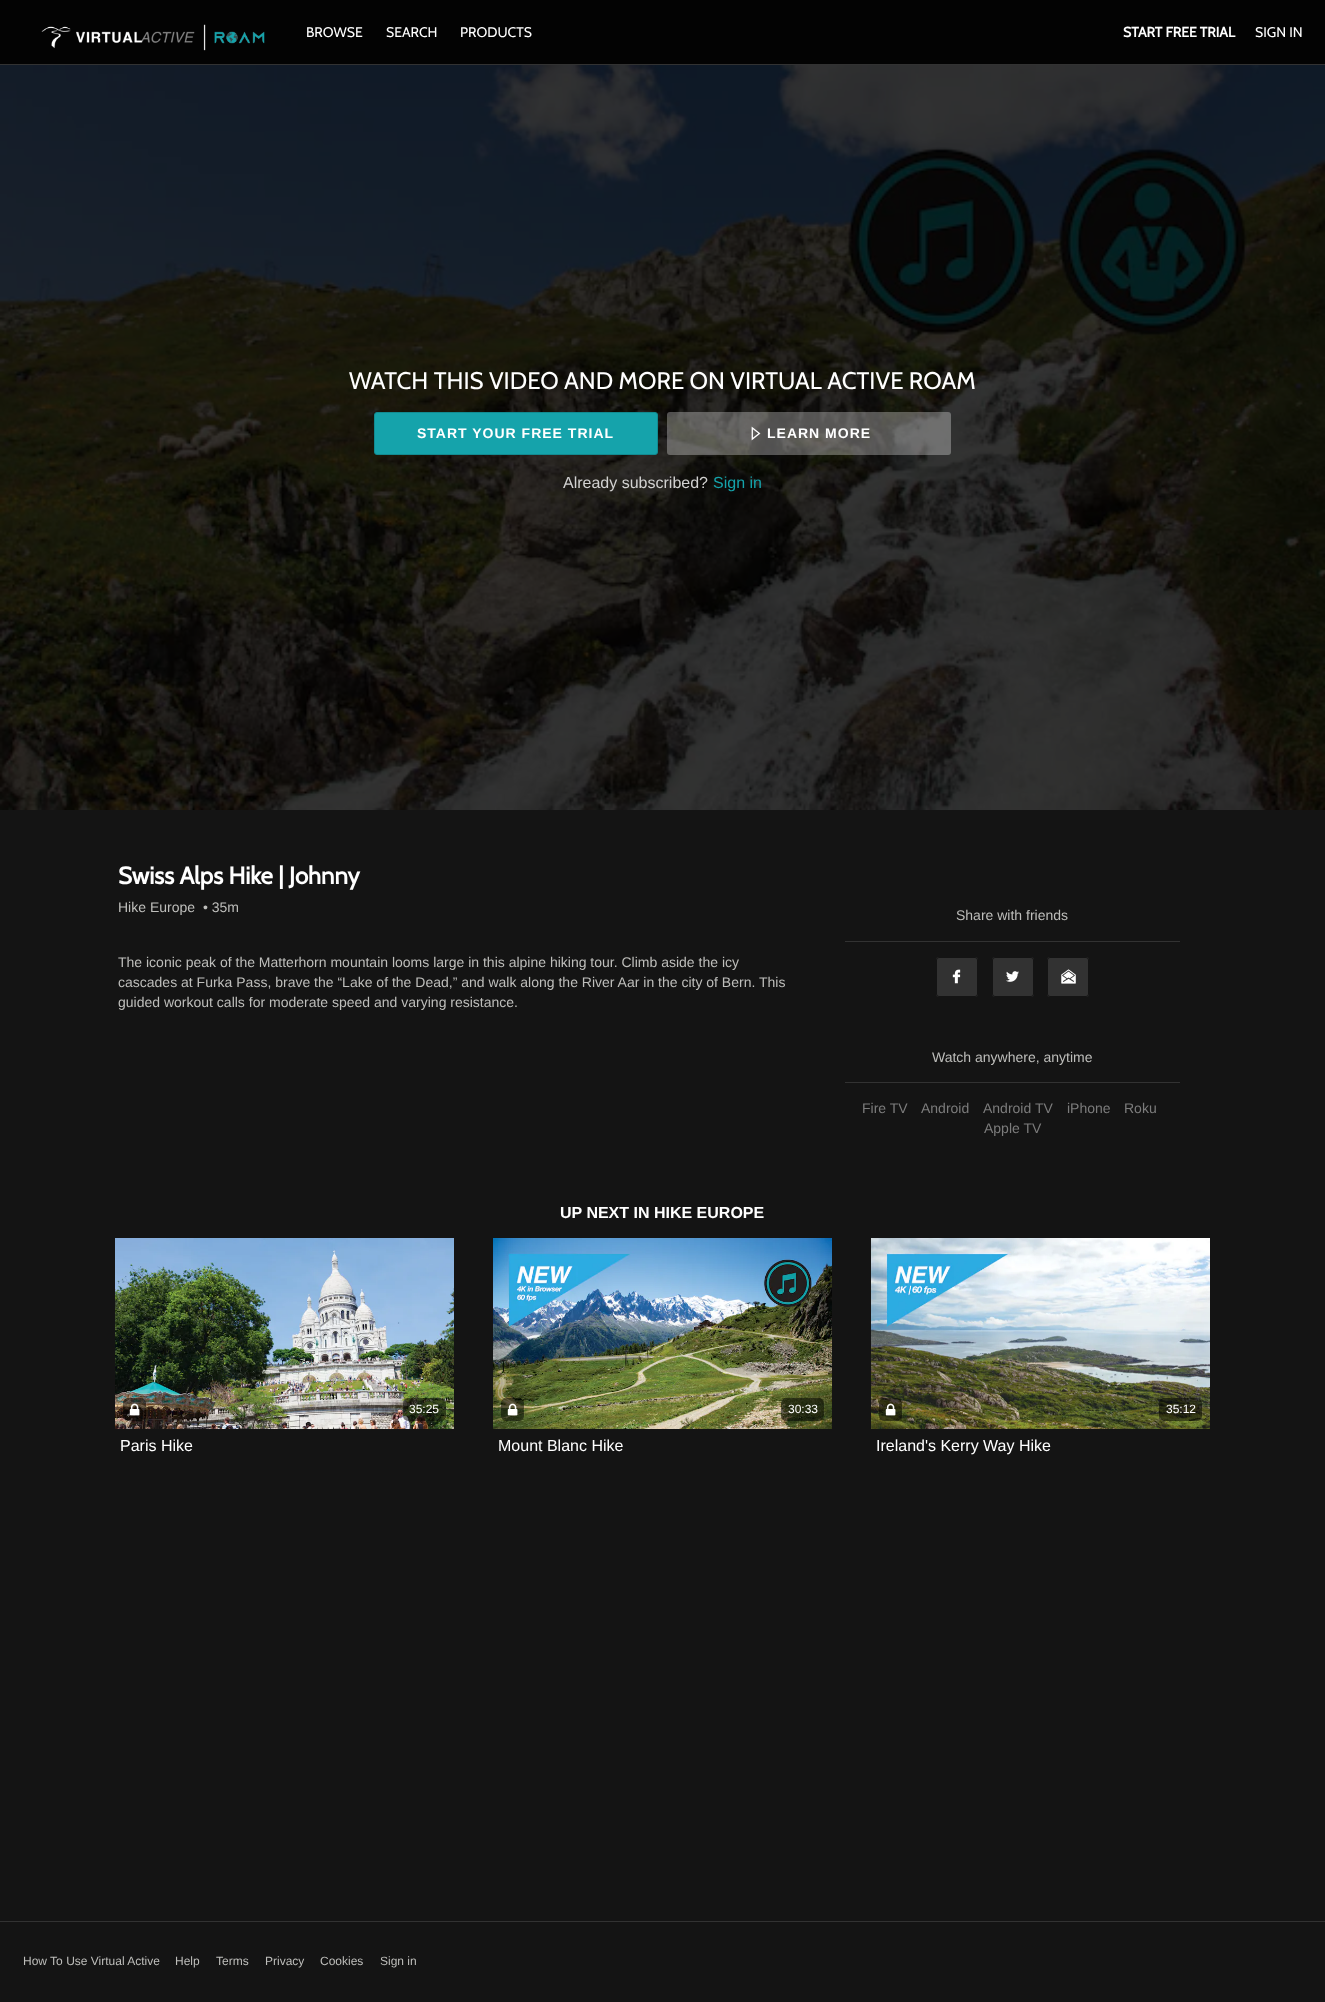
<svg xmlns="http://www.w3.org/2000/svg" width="1325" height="2002">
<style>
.a{font:14px Cabin;fill:#fff}
.b{font:bold 14px Cabin;fill:#fff}
.c{font:24px Cabin;fill:#fff}
.d{font:bold 14px Liberation Sans;letter-spacing:1px;fill:#fff}
.e{font:16px Liberation Sans;fill:#d2d2d1}
.f{font:16px Liberation Sans;fill:#15a3ab}
.g{font:bold 24px Cabin;fill:#fff}
.h{font:14px Liberation Sans;fill:#bebebb}
.i{font:14px Liberation Sans;fill:#7c7c7c}
.j{font:bold 16px Liberation Sans;fill:#fff}
.k{font:12px Liberation Sans;fill:#fff}
.l{font:16px Liberation Sans;fill:#fff}
.m{font:12px Liberation Sans;fill:#bebebb}
</style>
<rect width="100%" height="100%" fill="#141414"/>
<path fill="#030303" d="M0 0h1325v64H0z"/>
<path fill="#323232" d="M0 64h1325v1H0z"/>
<image href="1.png" x="41" y="24" width="224" height="27"/>
<image href="2.png" x="0" y="65" width="1325" height="745"/>
<rect fill="#15a3ab" stroke="#128b91" x="374.5" y="412.5" width="283" height="42" rx="2.5"/>
<rect fill="#ffffff4d" x="667" y="412" width="284" height="43" rx="3"/>
<image href="3.png" x="751" y="426" width="10" height="15"/>
<path fill="#323232" d="M845 941h335v1H845z"/>
<rect fill="#323232" x="936" y="957" width="42" height="40" rx="3"/>
<image href="4.png" x="952" y="969" width="9" height="15"/>
<rect fill="none" stroke="#141414" x="936.5" y="957.5" width="41" height="39" rx="2.5"/>
<rect fill="#323232" x="992" y="957" width="42" height="40" rx="3"/>
<image href="5.png" x="1006" y="971" width="13" height="11"/>
<rect fill="none" stroke="#141414" x="992.5" y="957.5" width="41" height="39" rx="2.5"/>
<rect fill="#323232" x="1047" y="957" width="42" height="40" rx="3"/>
<image href="6.png" x="1061" y="969" width="15" height="15"/>
<rect fill="none" stroke="#141414" x="1047.5" y="957.5" width="41" height="39" rx="2.5"/>
<path fill="#323232" d="M845 1082h335v1H845z"/>
<image href="7.png" x="115" y="1238" width="339" height="191"/>
<rect fill="#00000080" x="123" y="1398" width="23" height="23" rx="5"/>
<image href="8.png" x="129" y="1403" width="11" height="13"/>
<rect fill="#00000080" x="403" y="1398" width="43" height="23" rx="5"/>
<image href="9.png" x="493" y="1238" width="339" height="191"/>
<rect fill="#00000080" x="501" y="1398" width="23" height="23" rx="5"/>
<image href="10.png" x="507" y="1403" width="11" height="13"/>
<rect fill="#00000080" x="781" y="1398" width="43" height="23" rx="5"/>
<image href="11.png" x="871" y="1238" width="339" height="191"/>
<rect fill="#00000080" x="879" y="1398" width="23" height="23" rx="5"/>
<image href="12.png" x="885" y="1403" width="11" height="13"/>
<rect fill="#00000080" x="1159" y="1398" width="43" height="23" rx="5"/>
<path fill="#323232" d="M0 1921h1325v1H0z"/>
<text class="a" x="306" y="37">BROWSE</text>
<text class="a" x="386" y="37">SEARCH</text>
<text class="a" x="460" y="37">PRODUCTS</text>
<text class="b" x="1123" y="37">START FREE TRIAL</text>
<text class="a" x="1255" y="37">SIGN IN</text>
<text class="c" x="349" y="389">WATCH THIS VIDEO AND MORE ON VIRTUAL ACTIVE ROAM</text>
<text class="d" x="417" y="438">START YOUR FREE TRIAL</text>
<text class="d" x="767" y="438">LEARN MORE</text>
<text class="e" x="563" y="488">Already subscribed?</text>
<text class="f" x="713" y="488">Sign in</text>
<text class="g" x="118" y="884">Swiss Alps Hike | Johnny</text>
<text class="h" x="118" y="912">Hike Europe</text>
<text class="h" x="203" y="912">• 35m</text>
<text class="h" x="118" y="967">The iconic peak of the Matterhorn mountain looms large in this alpine hiking tour. Climb aside the icy</text>
<text class="h" x="118" y="987">cascades at Furka Pass, brave the “Lake of the Dead,” and walk along the River Aar in the city of Bern. This</text>
<text class="h" x="118" y="1007">guided workout calls for moderate speed and varying resistance.</text>
<text class="h" x="956" y="920">Share with friends</text>
<text class="h" x="932" y="1062">Watch anywhere, anytime</text>
<text class="i" x="862" y="1113">Fire TV</text>
<text class="i" x="921" y="1113">Android</text>
<text class="i" x="983" y="1113">Android TV</text>
<text class="i" x="1067" y="1113">iPhone</text>
<text class="i" x="1124" y="1113">Roku</text>
<text class="i" x="984" y="1133">Apple TV</text>
<text class="j" x="560" y="1218">UP NEXT IN HIKE EUROPE</text>
<text class="k" x="409" y="1413">35:25</text>
<text class="l" x="120" y="1451">Paris Hike</text>
<text class="k" x="788" y="1413">30:33</text>
<text class="l" x="498" y="1451">Mount Blanc Hike</text>
<text class="k" x="1166" y="1413">35:12</text>
<text class="l" x="876" y="1451">Ireland's Kerry Way Hike</text>
<text class="m" x="23" y="1965">How To Use Virtual Active</text>
<text class="m" x="175" y="1965">Help</text>
<text class="m" x="216" y="1965">Terms</text>
<text class="m" x="265" y="1965">Privacy</text>
<text class="m" x="320" y="1965">Cookies</text>
<text class="m" x="380" y="1965">Sign in</text>
</svg>
